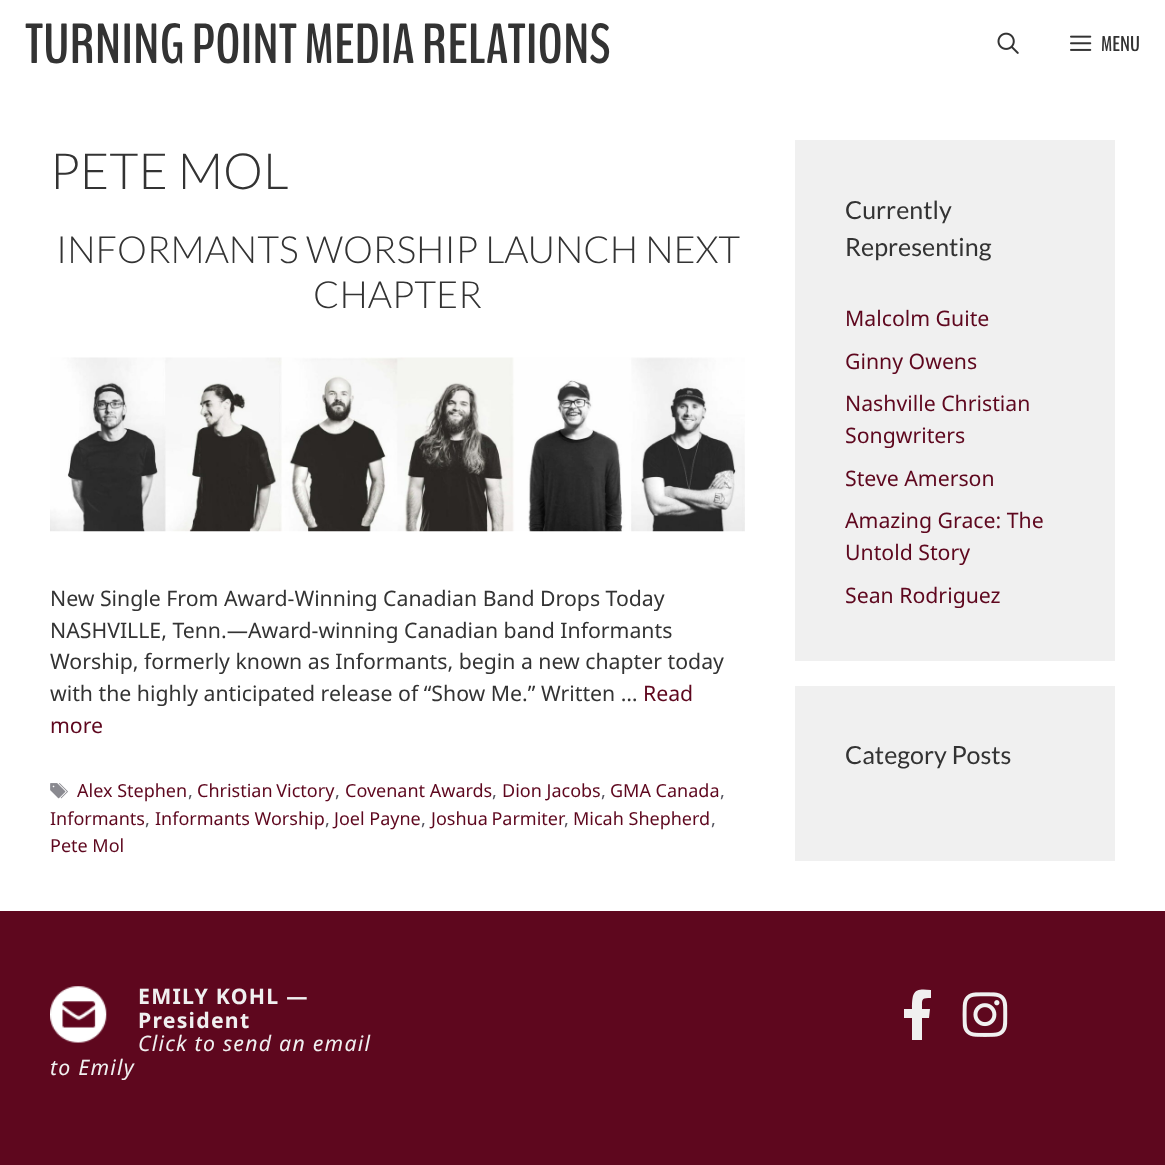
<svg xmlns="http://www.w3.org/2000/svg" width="1165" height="1165">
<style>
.a{font:bold 56.25px BenchNine;fill:#333}
.b{font:bold 21.25px BenchNine;fill:#333}
.c{font:300 50px Lato;fill:#333}
.d{font:300 37.5px Lato;fill:#333}
.e{font:21.25px Noto Sans;fill:#333}
.f{font:21.25px Noto Sans;fill:#5e071e}
.g{font:18px Noto Sans;fill:#5e071e}
.h{font:18px Noto Sans;fill:#575760}
.i{font:25px Lato;fill:#333}
.j{font:bold 21.25px Noto Sans;letter-spacing:1.25px;fill:#f0f0f0}
.k{font:italic 21.25px Noto Sans;letter-spacing:1.25px;fill:#f0f0f0}
</style>
<rect width="100%" height="100%" fill="#fff"/>
<image href="1.png" x="997" y="32" width="22" height="22"/>
<image href="2.png" x="1070" y="35" width="22" height="16"/>
<image href="3.png" x="50" y="357" width="695" height="175"/>
<image href="4.png" x="50" y="783" width="18" height="16"/>
<path fill="#f0f0f0" d="M795 140h320v521H795z"/>
<path fill="#f0f0f0" d="M795 686h320v175H795z"/>
<path fill="#5e071e" d="M0 911h1165v254H0z"/>
<image href="5.png" x="50" y="986" width="57" height="57"/>
<path fill="#f0f0f0" d="M929 1018h-7v22h-10v-22h-8v-9h8c0-18 2-21 19-19v8c-10 0-9 1-9 11h8z"/>
<image href="6.png" x="962" y="992" width="46" height="45"/>
<text class="a" x="25" y="63">TURNING POINT MEDIA RELATIONS</text>
<text class="b" x="1101" y="51">MENU</text>
<text class="c" x="50" y="189">PETE MOL</text>
<text class="d" x="56" y="263">INFORMANTS WORSHIP LAUNCH NEXT</text>
<text class="d" x="313" y="308">CHAPTER</text>
<text class="e" x="50" y="606">New Single From Award-Winning Canadian Band Drops Today</text>
<text class="e" x="50" y="638">NASHVILLE, Tenn.—Award-winning Canadian band Informants</text>
<text class="e" x="50" y="669">Worship, formerly known as Informants, begin a new chapter today</text>
<text class="e" x="50" y="701">with the highly anticipated release of “Show Me.” Written …</text>
<text class="f" x="643" y="701">Read</text>
<text class="f" x="50" y="733">more</text>
<text class="g" x="77" y="797">Alex Stephen</text>
<text class="h" x="188" y="797">,</text>
<text class="g" x="197" y="797" word-spacing="-1">Christian Victory</text>
<text class="h" x="335" y="797">,</text>
<text class="g" x="345" y="797">Covenant Awards</text>
<text class="h" x="492" y="797">,</text>
<text class="g" x="502" y="797">Dion Jacobs</text>
<text class="h" x="601" y="797">,</text>
<text class="g" x="610" y="797">GMA Canada</text>
<text class="h" x="720" y="797">,</text>
<text class="g" x="50" y="825">Informants</text>
<text class="h" x="145" y="825">,</text>
<text class="g" x="155" y="825">Informants Worship</text>
<text class="h" x="325" y="825">,</text>
<text class="g" x="334" y="825">Joel Payne</text>
<text class="h" x="421" y="825">,</text>
<text class="g" x="431" y="825" word-spacing="-1">Joshua Parmiter</text>
<text class="g" x="573" y="825">Micah Shepherd</text>
<text class="h" x="564" y="825">,</text>
<text class="h" x="711" y="825">,</text>
<text class="g" x="50" y="852">Pete Mol</text>
<text class="i" x="845" y="219">Currently</text>
<text class="i" x="845" y="256">Representing</text>
<text class="f" x="845" y="326">Malcolm Guite</text>
<text class="f" x="845" y="369">Ginny Owens</text>
<text class="f" x="845" y="411">Nashville Christian</text>
<text class="f" x="845" y="443">Songwriters</text>
<text class="f" x="845" y="486">Steve Amerson</text>
<text class="f" x="845" y="528">Amazing Grace: The</text>
<text class="f" x="845" y="560">Untold Story</text>
<text class="f" x="845" y="603">Sean Rodriguez</text>
<text class="i" x="845" y="764">Category Posts</text>
<text class="j" x="138" y="1004">EMILY KOHL —</text>
<text class="j" x="138" y="1028">President</text>
<text class="k" x="138" y="1051">Click to send an email</text>
<text class="k" x="50" y="1075">to Emily</text>
</svg>
